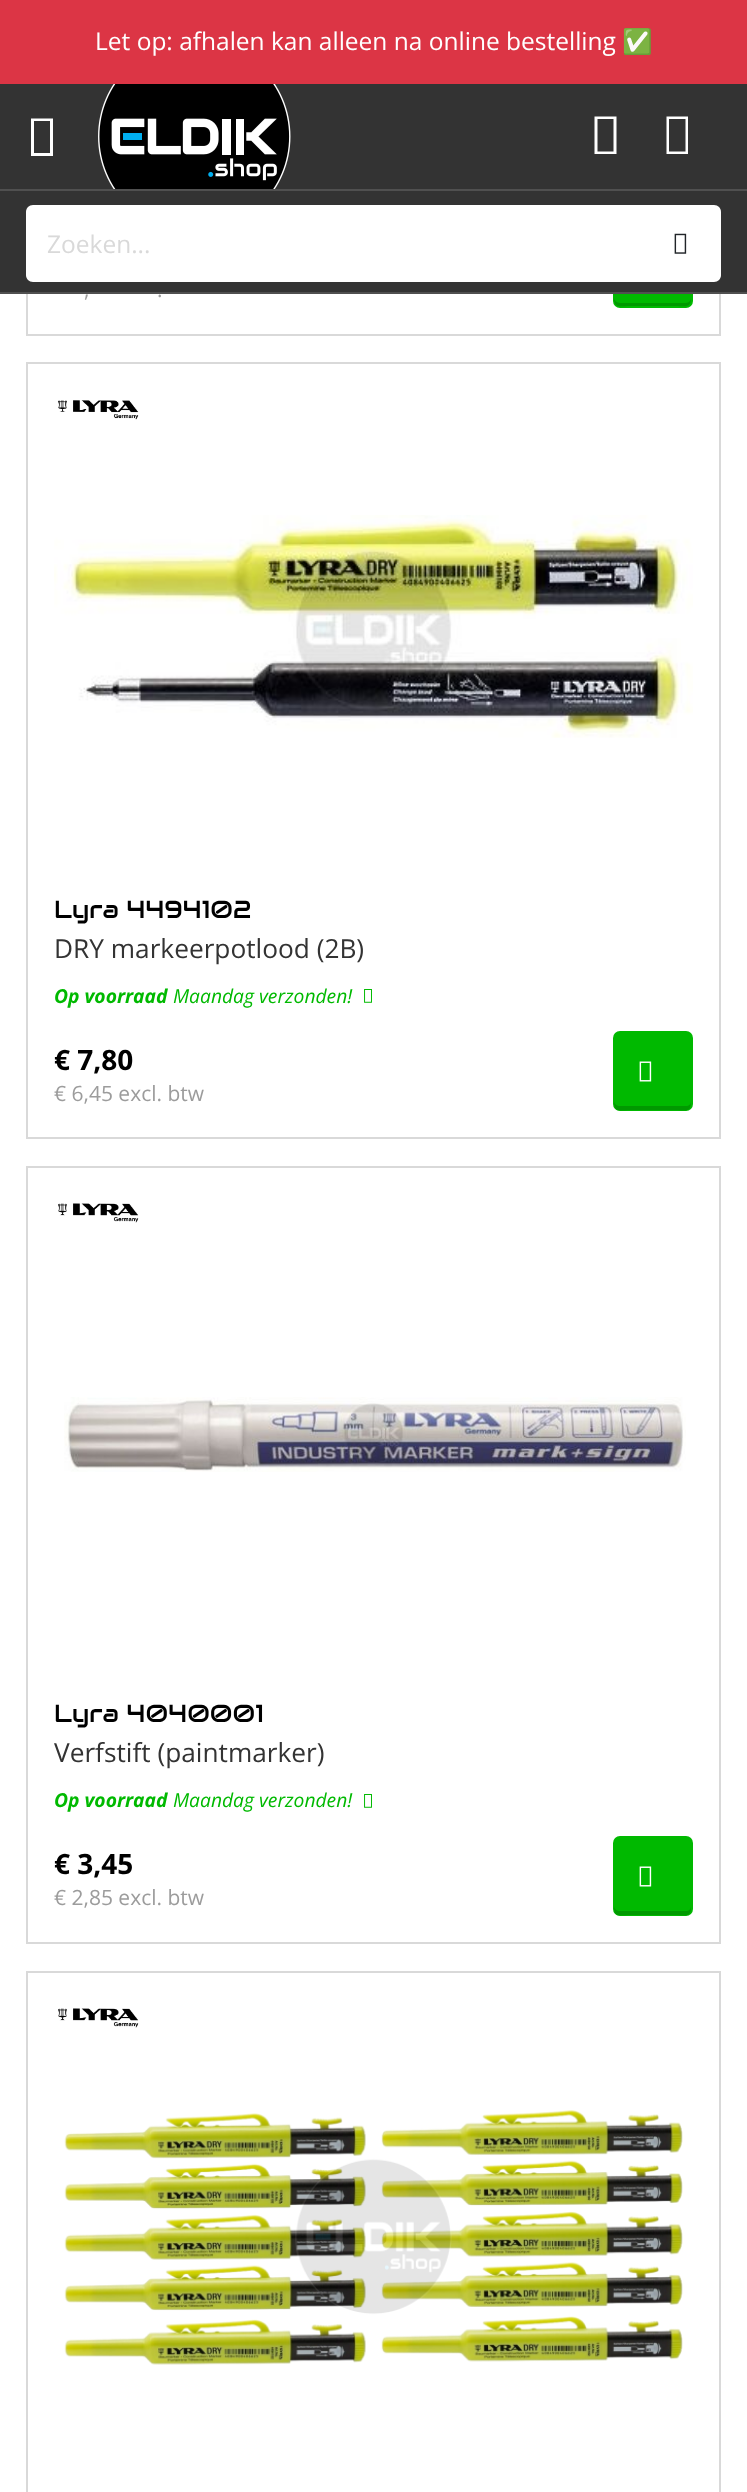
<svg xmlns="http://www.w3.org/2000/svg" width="747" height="2492">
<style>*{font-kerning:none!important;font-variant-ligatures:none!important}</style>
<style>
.a{font:24.5px Open Sans;fill:#fff}
.b{font:24.5px Noto Color Emoji;fill:#fff}
.c{font:24.5px Open Sans;fill:#d9d9d9}
.d{font:21px Open Sans;fill:#9c9c9c}
.e{font:24.5px Audiowide;fill:#000}
.f{font:26.25px Open Sans;fill:#333}
.g{font:italic bold 19.25px Open Sans;fill:#00b900}
.h{font:italic 19.25px Open Sans;fill:#00b900}
.i{font:bold 28px Open Sans;fill:#000}
</style>
<rect width="100%" height="100%" fill="#fff"/>
<path fill="none" stroke="#d9d9d9" stroke-width="2" d="M27 -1h693v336H27z"/>
<path fill="#dc3545" d="M0 0h747v84H0z"/>
<rect fill="#00b900" x="613" y="228" width="80" height="80" rx="7"/>
<path fill="#333" d="M0 84h747v208H0z"/>
<path fill="#fff" d="M31 156v-37.5h22v37.5zm3-3h16v-32h-16z"/>
<image href="1.png" x="98" y="84" width="193" height="105"/>
<path fill="#fff" d="M594.5 154v-37.5h22v37.5zm3-2.5h16v-32.5h-16z"/>
<path fill="#fff" d="M666.5 154v-37.5h21.5v37.5zm2.5-2.5h16.5v-32.5h-16.5z"/>
<path fill="#505050" d="M0 189h747v2H0z"/>
<path fill="#505050" d="M0 292h747v2H0z"/>
<path fill="#fff" d="M33 205h620v77h-620c-4 0-7-3-7-7v-63c0-4 3-7 7-7z"/>
<path fill="#fff" d="M651 205h63c4 0 7 3 7 7v63c0 4-3 7-7 7h-63z"/>
<image href="2.png" x="674" y="233" width="13" height="21"/>
<path fill="#090" d="M614 298c0 11 6 8 16 8h45c10 0 16 3 16-8c0 2-2 5-5 5h-66c-3 0-6-3-6-5z"/>
<path fill="none" stroke="#d9d9d9" stroke-width="2" d="M27 363h693v775H27z"/>
<image href="3.png" x="57" y="400" width="82" height="20"/>
<image href="4.png" x="54" y="515" width="639" height="223"/>
<image href="5.png" x="364" y="989" width="8" height="14"/>
<rect fill="#00b900" x="613" y="1031" width="80" height="80" rx="7"/>
<path fill="#090" d="M614 1101c0 12 4 9 16 9h45c12 0 16 3 16-9c0 3-2 5-5 5h-66c-3 0-6-2-6-5z"/>
<image href="6.png" x="639" y="1061" width="13" height="21"/>
<path fill="none" stroke="#d9d9d9" stroke-width="2" d="M27 1167h693v776H27z"/>
<image href="7.png" x="58" y="1203" width="81" height="20"/>
<image href="8.png" x="64" y="1397" width="622" height="75"/>
<image href="5.png" x="364" y="1794" width="8" height="14"/>
<rect fill="#00b900" x="613" y="1836" width="80" height="80" rx="7"/>
<path fill="#090" d="M614 1906c0 12 4 9 16 9h45c12 0 16 3 16-9c0 3-2 5-5 5h-66c-3 0-6-2-6-5z"/>
<image href="6.png" x="639" y="1866" width="13" height="21"/>
<path fill="none" stroke="#d9d9d9" stroke-width="2" d="M27 1972h693v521H27z"/>
<image href="7.png" x="58" y="2008" width="81" height="20"/>
<image href="9.png" x="64" y="2110" width="619" height="255"/>
<text class="a" x="95" y="50">Let op: afhalen kan alleen na online bestelling</text>
<text class="b" x="622" y="50">✅</text>
<text class="c" x="47" y="253">Zoeken...</text>
<text class="d" x="84" y="297">,</text>
<text class="d" x="157" y="297">.</text>
<text class="e" x="54" y="918">Lyra 4494102</text>
<text class="f" x="54" y="958">DRY markeerpotlood (2B)</text>
<text class="g" x="54" y="1003">Op voorraad</text>
<text class="h" x="173" y="1003">Maandag verzonden!</text>
<text class="i" x="54" y="1070">€ 7,80</text>
<text class="d" x="54" y="1101">€ 6,45 excl. btw</text>
<text class="e" x="54" y="1722">Lyra 4040001</text>
<text class="f" x="54" y="1762">Verfstift (paintmarker)</text>
<text class="g" x="54" y="1807">Op voorraad</text>
<text class="h" x="173" y="1807">Maandag verzonden!</text>
<text class="i" x="54" y="1874">€ 3,45</text>
<text class="d" x="54" y="1905">€ 2,85 excl. btw</text>
</svg>
